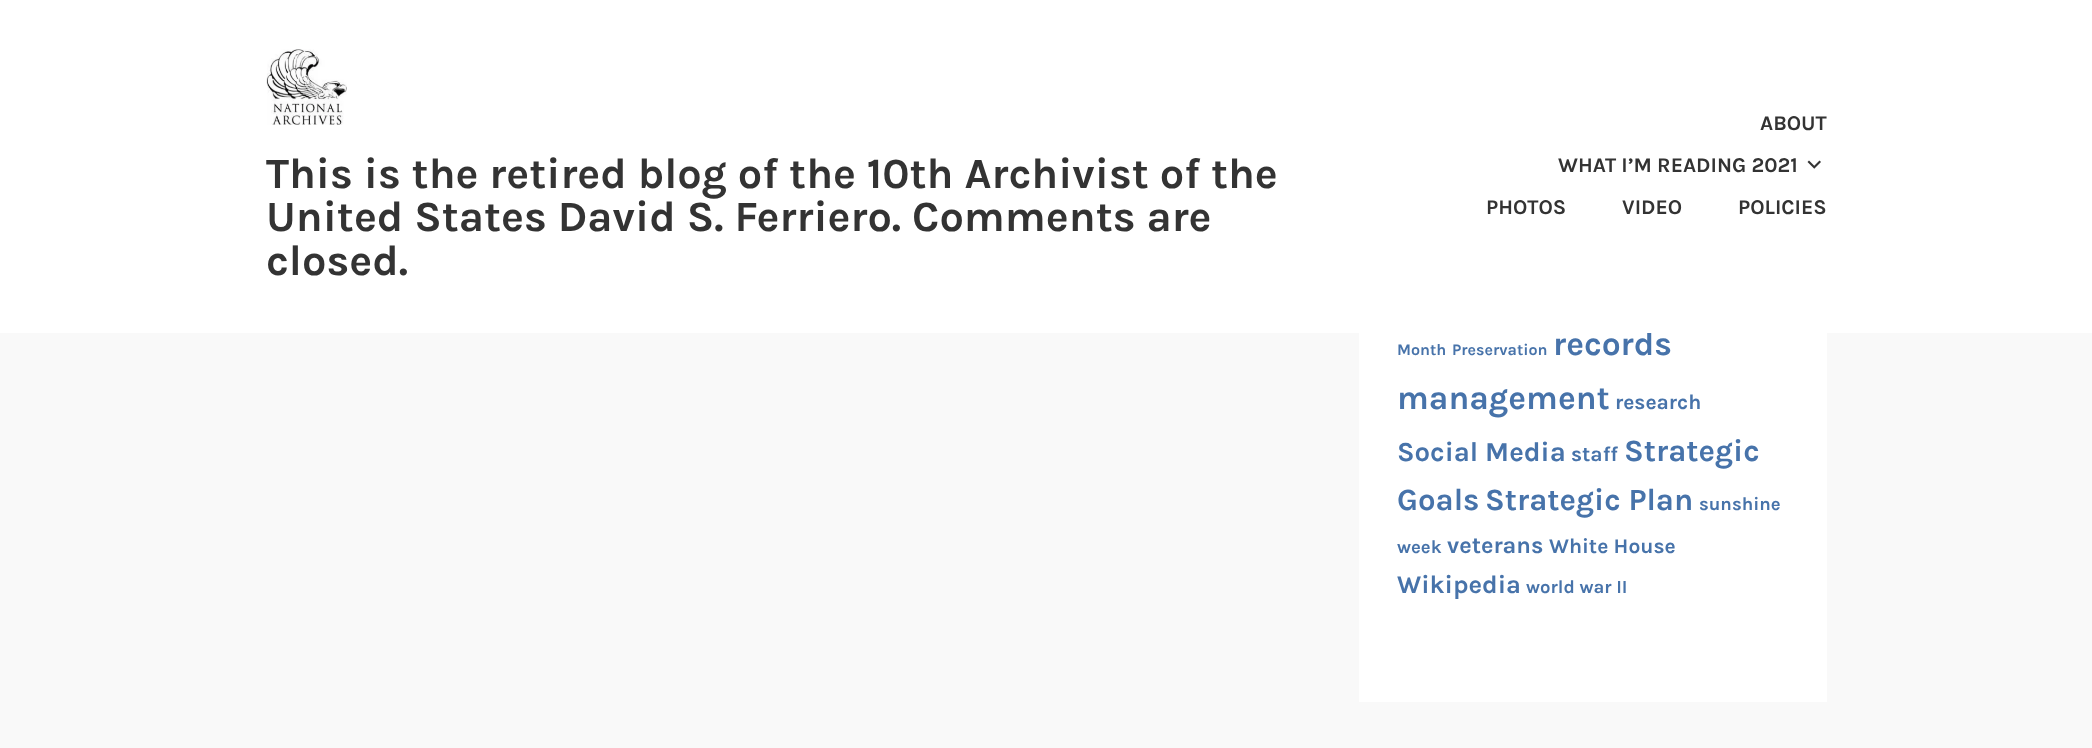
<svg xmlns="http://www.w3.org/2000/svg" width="2092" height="748">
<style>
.a{font:bold 16px Karla;fill:#4773aa}
.b{font:bold 33.5px Karla;fill:#4773aa}
.c{font:bold 21px Karla;fill:#333}
.d{font:bold 43.2px Karla;fill:#333}
.e{font:bold 21px Karla;fill:#4773aa}
.f{font:bold 27.5px Karla;fill:#4773aa}
.g{font:bold 31px Karla;fill:#4773aa}
.h{font:bold 18.5px Karla;fill:#4773aa}
.i{font:bold 23.5px Karla;fill:#4773aa}
.j{font:bold 25.5px Karla;fill:#4773aa}
</style>
<rect width="100%" height="100%" fill="#f9f9f9"/>
<path fill="#fff" d="M1359 333h468v369H1359z"/>
<text class="a" x="1397" y="355">Month</text>
<text class="a" x="1452" y="355">Preservation</text>
<text class="b" x="1553" y="355">records</text>
<path fill="#fff" d="M0 0h2092v333H0z"/>
<text class="c" x="1738" y="214">POLICIES</text>
<text class="c" x="1622" y="214">VIDEO</text>
<text class="c" x="1486" y="214">PHOTOS</text>
<image href="2.png" x="1807" y="160" width="14" height="9"/>
<text class="c" x="1558" y="172">WHAT I’M READING 2021</text>
<text class="c" x="1760" y="130">ABOUT</text>
<image href="1.png" x="266" y="49" width="81" height="76"/>
<text class="d" x="266" y="275">closed.</text>
<text class="d" x="266" y="231">United States David S. Ferriero. Comments are</text>
<text class="d" x="266" y="188">This is the retired blog of the 10th Archivist of the</text>
<text class="b" x="1397" y="409">management</text>
<text class="e" x="1615" y="409">research</text>
<text class="f" x="1397" y="461">Social Media</text>
<text class="e" x="1571" y="461">staff</text>
<text class="g" x="1624" y="461">Strategic</text>
<text class="g" x="1397" y="510">Goals</text>
<text class="g" x="1485" y="510">Strategic Plan</text>
<text class="h" x="1699" y="510">sunshine</text>
<text class="h" x="1397" y="553">week</text>
<text class="i" x="1447" y="553">veterans</text>
<text class="e" x="1549" y="553">White House</text>
<text class="j" x="1397" y="593">Wikipedia</text>
<text class="h" x="1526" y="593">world war II</text>
</svg>
